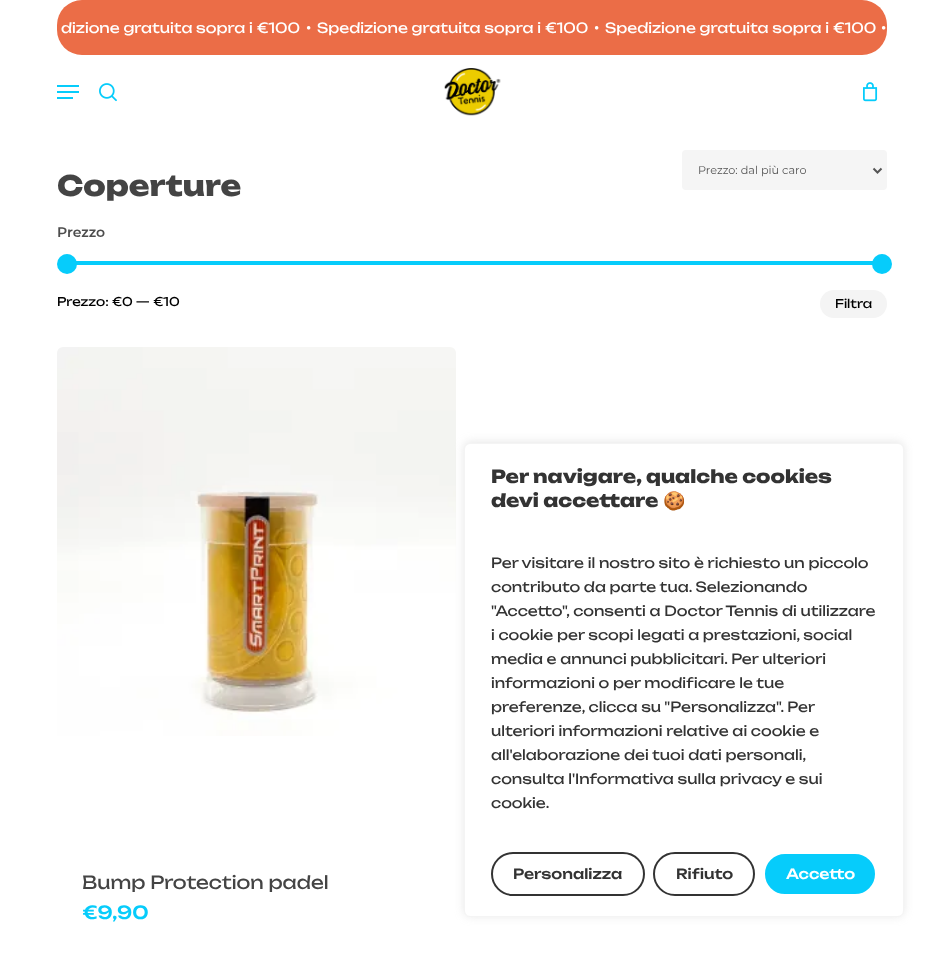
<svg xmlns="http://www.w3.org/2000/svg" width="944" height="957">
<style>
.a{font:14px Unbounded;fill:#fff}
.b{font:11.25px Montserrat;fill:#555}
.c{font:800 28px Unbounded;fill:#444}
.d{font:600 14px Montserrat;fill:#4d4d4d}
.e{font:12px Unbounded;fill:#000}
.f{font:18px Unbounded;fill:#444}
.g{font:500 18px Unbounded;fill:#06ccfb}
.h{font:800 18px Unbounded;fill:#333}
.i{font:bold 18px Noto Color Emoji;fill:#333}
.j{font:14px Unbounded;fill:#333}
.k{font:500 14px Unbounded;fill:#333}
.l{font:500 14px Unbounded;fill:#fff}
</style>
<rect width="100%" height="100%" fill="#fff"/>
<rect fill="#eb6d47" x="57" width="830" height="55" rx="25"/>
<image href="1.png" x="444" y="68" width="57" height="48"/>
<path fill="#06ccfb" d="M57 85h22v2H57z"/>
<path fill="#06ccfb" d="M57 97h16v2H57z"/>
<path fill="#06ccfb" d="M57 91h22v2H57z"/>
<image href="2.png" x="99" y="83" width="18" height="19"/>
<image href="3.png" x="863" y="82" width="15" height="20"/>
<rect fill="#f5f5f5" x="682" y="150" width="205" height="40" rx="4"/>
<path fill="none" stroke="#555" stroke-width="2" d="M873.5 168.5l4 4l4-4"/>
<path fill="#06ccfb" d="M76 261h804v4H76z"/>
<circle fill="#06ccfb" cx="67" cy="264" r="10"/>
<circle fill="#06ccfb" cx="882" cy="264" r="10"/>
<rect fill="#f4f4f4" x="820" y="290" width="67" height="28" rx="14"/>
<image href="4.png" x="57" y="347" width="399" height="389"/>
<rect fill="#acabab4d" filter="blur(5px)" x="464" y="442" width="440" height="474" rx="6"/>
<rect fill="#fff" stroke="#f4f4f4" x="464.5" y="443.5" width="439" height="473" rx="5.5"/>
<rect fill="none" stroke="#333" stroke-width="2" x="492" y="853" width="152" height="42" rx="21"/>
<rect fill="none" stroke="#333" stroke-width="2" x="654" y="853" width="100" height="42" rx="21"/>
<rect fill="#06ccfb" stroke="#fff" stroke-width="2" x="764" y="853" width="112" height="42" rx="21"/>
<text class="a" x="61" y="33">dizione gratuita sopra i €100</text>
<text class="a" x="306" y="33">•</text>
<text class="a" x="317" y="33">Spedizione gratuita sopra i €100</text>
<text class="a" x="594" y="33">•</text>
<text class="a" x="605" y="33">Spedizione gratuita sopra i €100</text>
<text class="a" x="881" y="33">•</text>
<text class="b" x="698" y="174">Prezzo: dal più caro</text>
<text class="c" x="57" y="196">Coperture</text>
<text class="d" x="57" y="237">Prezzo</text>
<text class="e" x="57" y="306">Prezzo: €0 — €10</text>
<text class="e" x="835" y="308">Filtra</text>
<text class="f" x="82" y="889">Bump Protection padel</text>
<text class="g" x="82" y="919">€9,90</text>
<text class="h" x="491" y="483">Per navigare, qualche cookies</text>
<text class="h" x="491" y="507">devi accettare</text>
<text class="i" x="663" y="507">🍪</text>
<text class="j" x="491" y="568">Per visitare il nostro sito è richiesto un piccolo</text>
<text class="j" x="491" y="592">contributo da parte tua. Selezionando</text>
<text class="j" x="491" y="616">"Accetto", consenti a Doctor Tennis di utilizzare</text>
<text class="j" x="491" y="640">i cookie per scopi legati a prestazioni, social</text>
<text class="j" x="491" y="664">media e annunci pubblicitari. Per ulteriori</text>
<text class="j" x="491" y="688">informazioni o per modificare le tue</text>
<text class="j" x="491" y="712">preferenze, clicca su "Personalizza". Per</text>
<text class="j" x="491" y="736">ulteriori informazioni relative ai cookie e</text>
<text class="j" x="491" y="760">all'elaborazione dei tuoi dati personali,</text>
<text class="j" x="491" y="784">consulta l'Informativa sulla privacy e sui</text>
<text class="j" x="491" y="808">cookie.</text>
<text class="k" x="513" y="879">Personalizza</text>
<text class="k" x="676" y="879">Rifiuto</text>
<text class="l" x="786" y="879">Accetto</text>
</svg>
